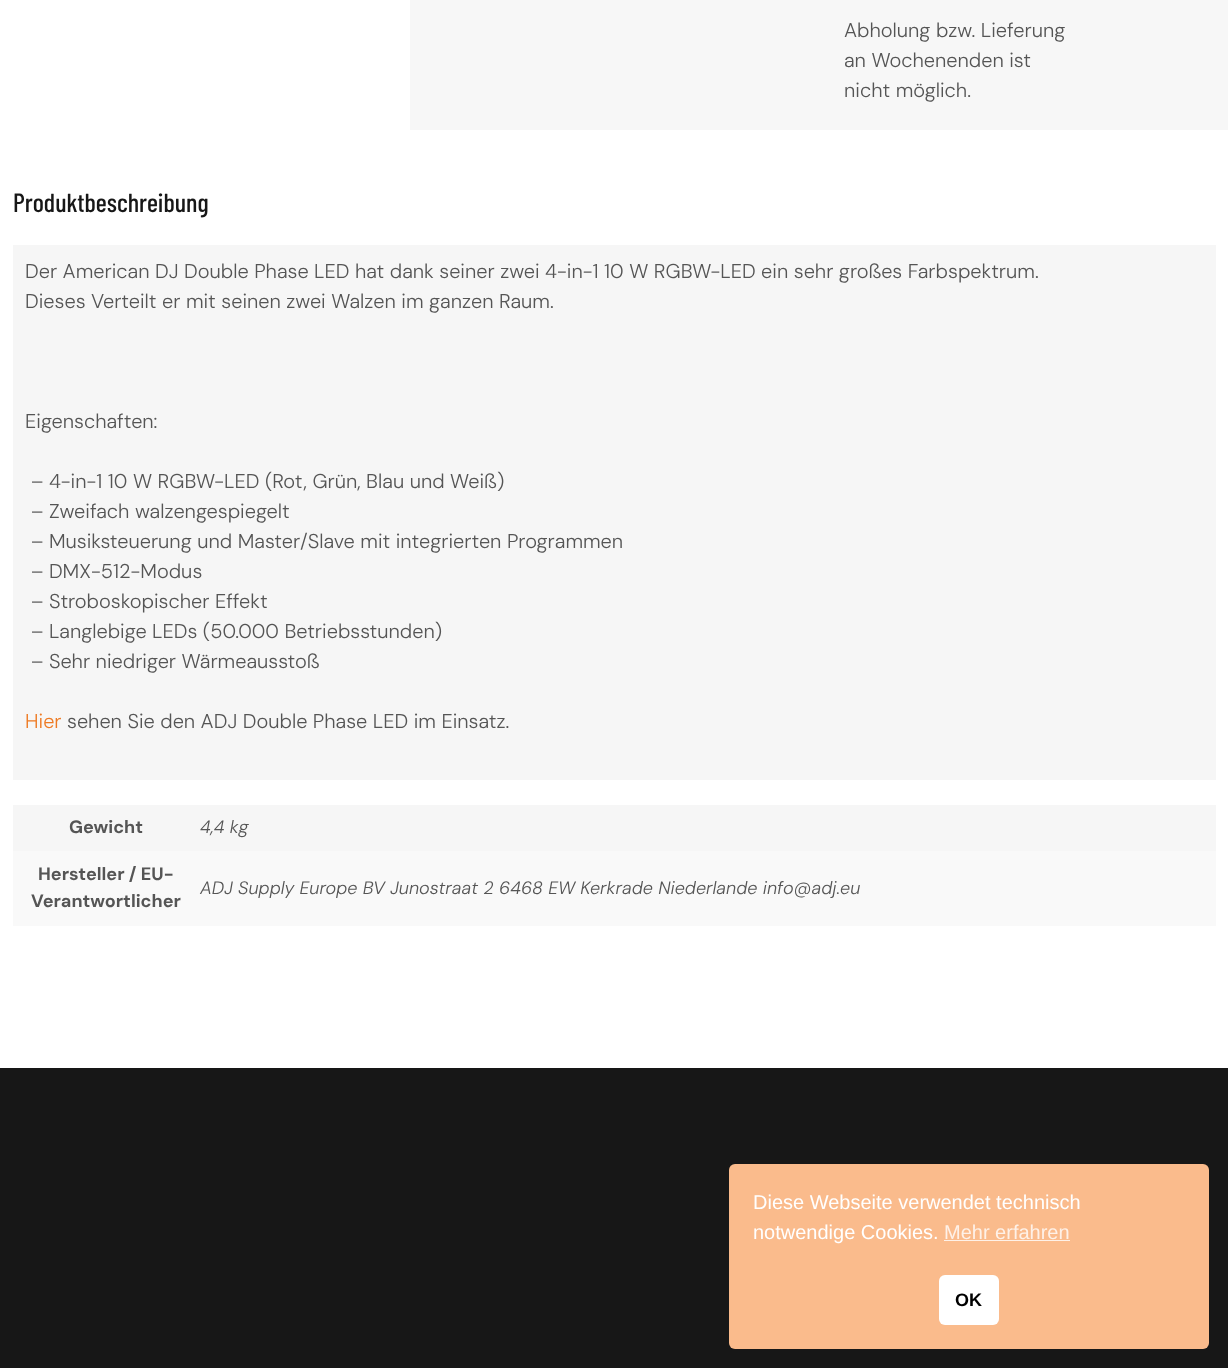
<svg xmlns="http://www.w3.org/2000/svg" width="1228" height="1368">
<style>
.a{font:300 20px DM Sans;fill:#555}
.b{font:500 26.25px Barlow Condensed;fill:#171717}
.c{font:300 20px DM Sans;fill:#ee7a23}
.d{font:bold 18px DM Sans;fill:#555}
.e{font:italic 300 18px DM Sans;fill:#555}
.f{font:20px Liberation Sans;fill:#fff}
.g{font:20px Liberation Sans;fill:#fef1e8}
.h{font:bold 18px Liberation Sans;fill:#000}
</style>
<rect width="100%" height="100%" fill="#fff"/>
<path fill="#f7f7f7" d="M410 0h818v130H410z"/>
<path fill="#f6f6f6" d="M13 245h1203v535H13z"/>
<path fill="#f6f6f6" d="M13 805h1203v46H13z"/>
<path fill="#f9f9f9" d="M13 851h1203v75H13z"/>
<path fill="#171717" d="M0 1068h1228v300H0z"/>
<rect fill="#fabb8c" x="729" y="1164" width="480" height="185" rx="6"/>
<path fill="#fef1e8" d="M944 1240h126v1H944z"/>
<rect fill="#fff" x="939" y="1275" width="60" height="50" rx="6"/>
<text class="a" x="844" y="37">Abholung bzw. Lieferung</text>
<text class="a" x="844" y="67">an Wochenenden ist</text>
<text class="a" x="844" y="97">nicht möglich.</text>
<text class="b" x="13" y="212">Produktbeschreibung</text>
<text class="a" x="25" y="278">Der American DJ Double Phase LED hat dank seiner zwei 4-in-1 10 W RGBW-LED ein sehr großes Farbspektrum.</text>
<text class="a" x="25" y="308">Dieses Verteilt er mit seinen zwei Walzen im ganzen Raum.</text>
<text class="a" x="25" y="428">Eigenschaften:</text>
<text class="a" x="31" y="488">– 4-in-1 10 W RGBW-LED (Rot, Grün, Blau und Weiß)</text>
<text class="a" x="31" y="518">– Zweifach walzengespiegelt</text>
<text class="a" x="31" y="548">– Musiksteuerung und Master/Slave mit integrierten Programmen</text>
<text class="a" x="31" y="578">– DMX-512-Modus</text>
<text class="a" x="31" y="608">– Stroboskopischer Effekt</text>
<text class="a" x="31" y="638">– Langlebige LEDs (50.000 Betriebsstunden)</text>
<text class="a" x="31" y="668">– Sehr niedriger Wärmeausstoß</text>
<text class="c" x="25" y="728">Hier</text>
<text class="a" x="67" y="728">sehen Sie den ADJ Double Phase LED im Einsatz.</text>
<text class="d" x="69" y="833">Gewicht</text>
<text class="e" x="200" y="833">4,4 kg</text>
<text class="d" x="38" y="880">Hersteller / EU-</text>
<text class="d" x="31" y="907">Verantwortlicher</text>
<text class="e" x="200" y="894">ADJ Supply Europe BV Junostraat 2 6468 EW Kerkrade Niederlande info@adj.eu</text>
<text class="f" x="753" y="1209">Diese Webseite verwendet technisch</text>
<text class="f" x="753" y="1239">notwendige Cookies.</text>
<text class="g" x="944" y="1239">Mehr erfahren</text>
<text class="h" x="955" y="1306">OK</text>
</svg>
